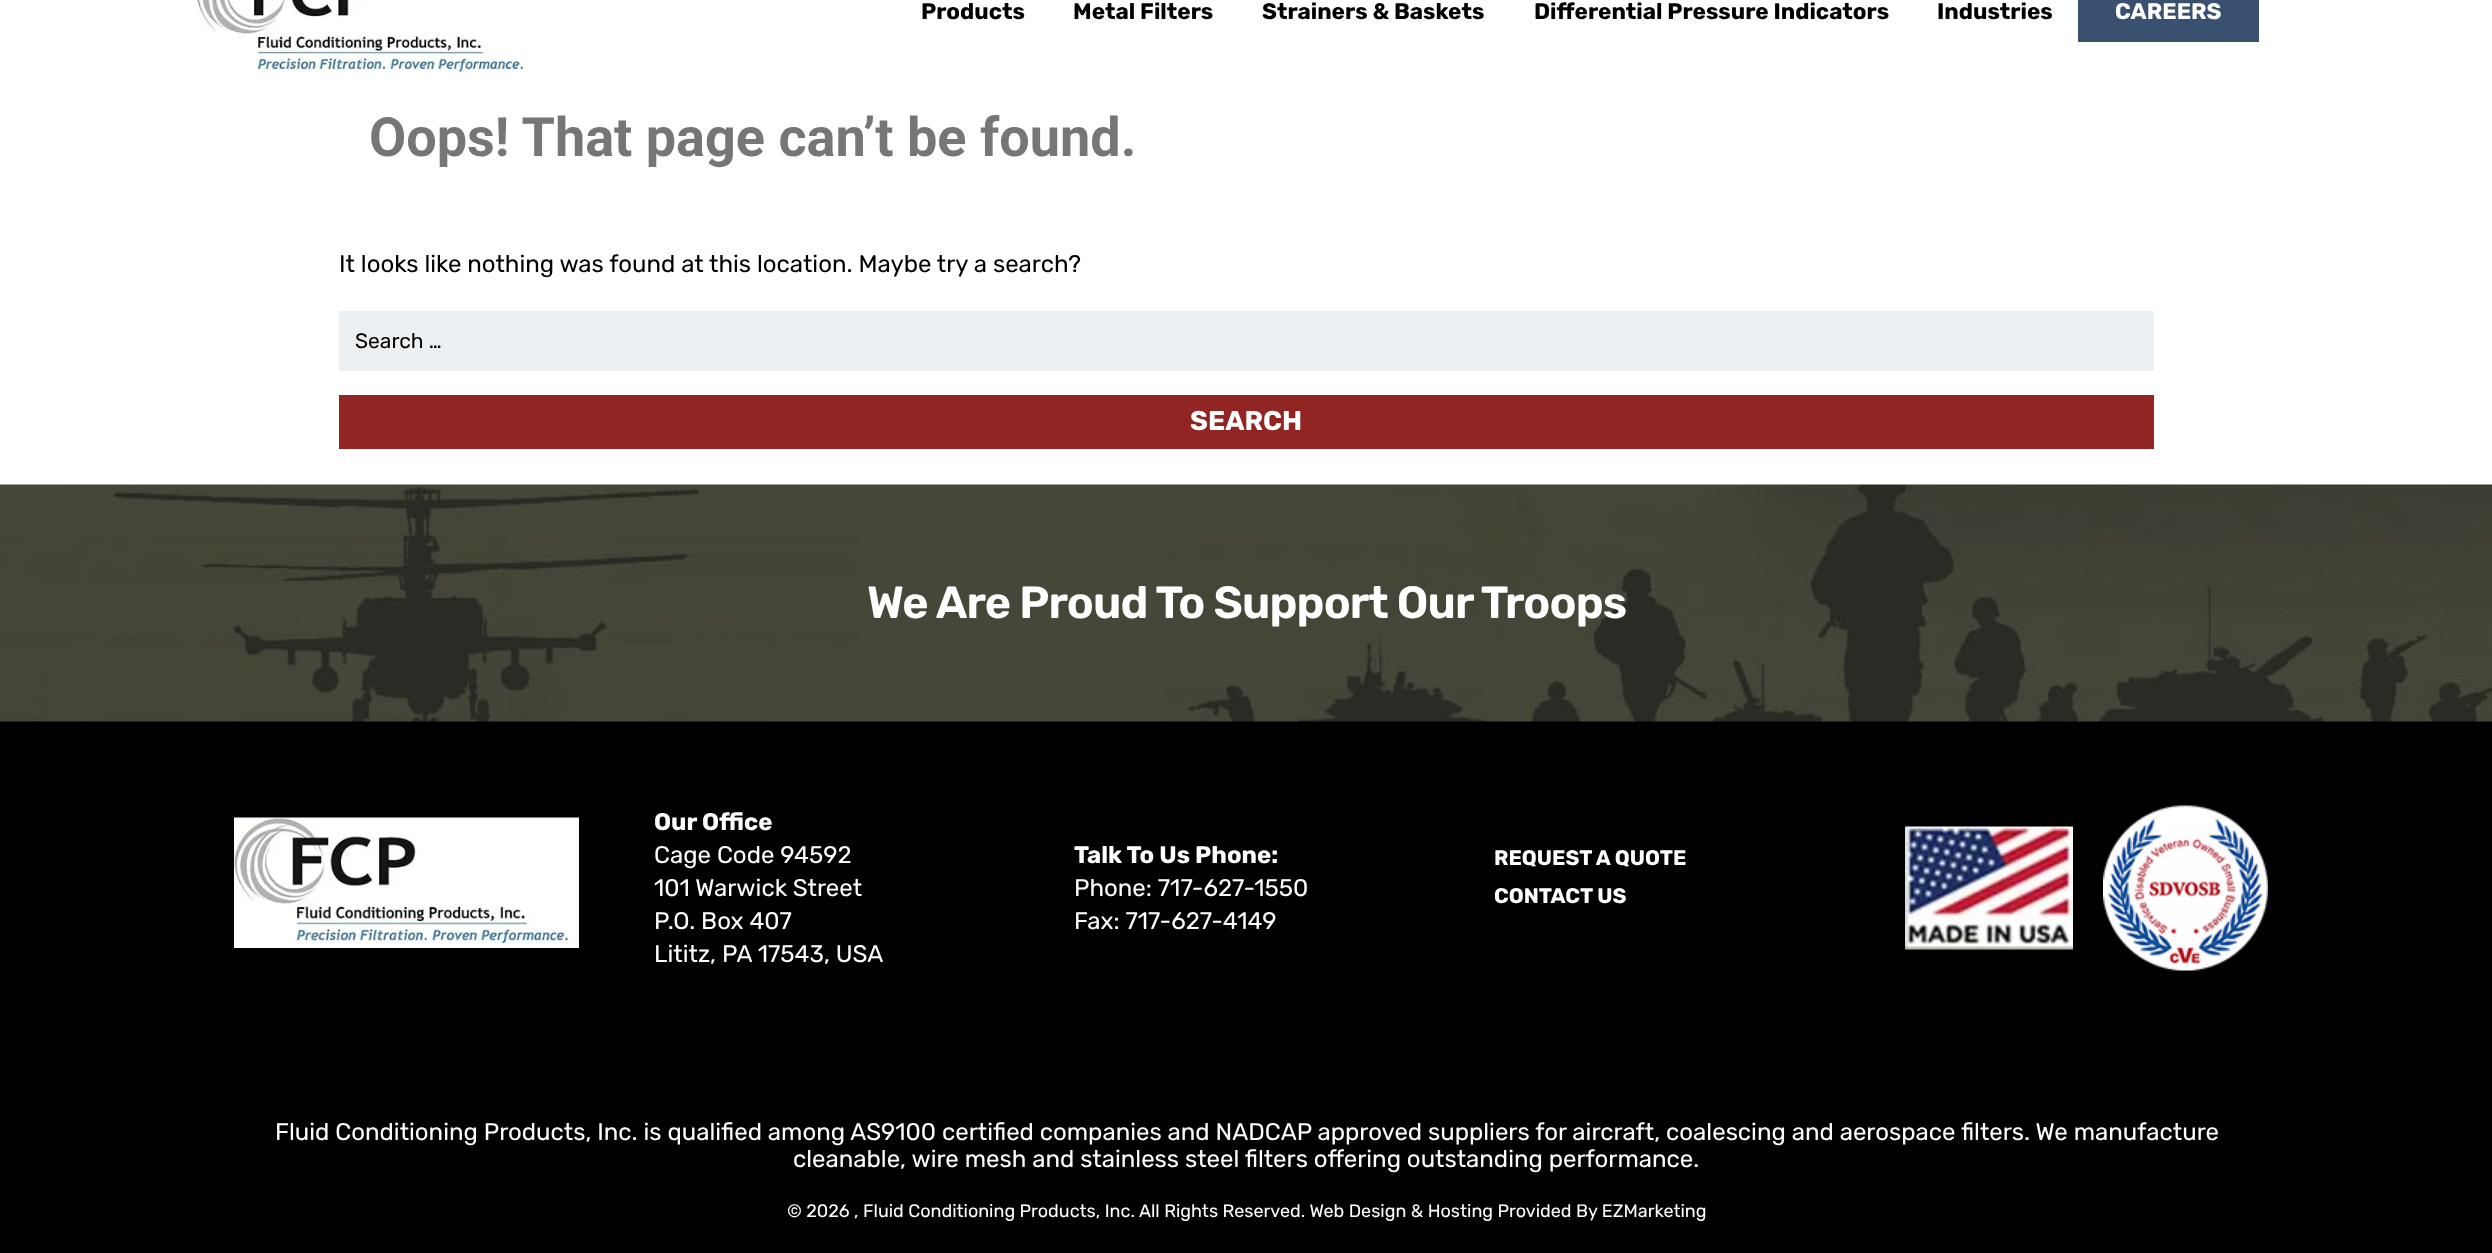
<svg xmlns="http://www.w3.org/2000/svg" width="2492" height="1253">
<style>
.a{font:bold 22.5px Rubik;fill:#000}
.b{font:bold 22.5px Rubik;fill:#fff}
.c{font:bold 54px Roboto;fill:#767676}
.d{font:24px Rubik;fill:#000}
.e{font:21px Rubik;fill:#000}
.f{font:bold 27px Rubik;fill:#fff}
.g{font:600 45px Rubik;letter-spacing:-0.9px;fill:#fff}
.h{font:bold 24px Rubik;fill:#fff}
.i{font:24px Rubik;fill:#fff}
.j{font:bold 21px Rubik;fill:#fff}
.k{font:18px Rubik;fill:#fff}
</style>
<rect width="100%" height="100%" fill="#fff"/>
<image href="1.png" x="197" y="0" width="331" height="73"/>
<path fill="#395070" d="M2078 0h181v42H2078z"/>
<path fill="#ecf0f3" d="M339 311h1815v60H339z"/>
<path fill="#912523" d="M339 395h1815v54H339z"/>
<path fill="#000" d="M0 721h2492v532H0z"/>
<image href="2.png" x="0" y="484" width="2492" height="238"/>
<image href="3.png" x="234" y="817" width="345" height="131"/>
<image href="4.png" x="1905" y="826" width="168" height="124"/>
<image href="5.png" x="2103" y="805" width="165" height="166"/>
<text class="a" x="921" y="19">Products</text>
<text class="a" x="1073" y="19">Metal Filters</text>
<text class="a" x="1262" y="19">Strainers &amp; Baskets</text>
<text class="a" x="1534" y="19">Differential Pressure Indicators</text>
<text class="a" x="1937" y="19">Industries</text>
<text class="b" x="2115" y="19">CAREERS</text>
<text class="c" x="369" y="156">Oops! That page can’t be found.</text>
<text class="d" x="339" y="272">It looks like nothing was found at this location. Maybe try a search?</text>
<text class="e" x="355" y="348">Search …</text>
<text class="f" x="1190" y="430">SEARCH</text>
<text class="g" x="867" y="618">We Are Proud To Support Our Troops</text>
<text class="h" x="654" y="830">Our Office</text>
<text class="i" x="654" y="863">Cage Code 94592</text>
<text class="i" x="654" y="896">101 Warwick Street</text>
<text class="i" x="654" y="929">P.O. Box 407</text>
<text class="i" x="654" y="962">Lititz, PA 17543, USA</text>
<text class="h" x="1074" y="863">Talk To Us Phone:</text>
<text class="i" x="1074" y="896">Phone: 717-627-1550</text>
<text class="i" x="1074" y="929">Fax: 717-627-4149</text>
<text class="j" x="1494" y="865">REQUEST A QUOTE</text>
<text class="j" x="1494" y="903">CONTACT US</text>
<text class="i" x="275" y="1140">Fluid Conditioning Products, Inc. is qualified among AS9100 certified companies and NADCAP approved suppliers for aircraft, coalescing and aerospace filters. We manufacture</text>
<text class="i" x="793" y="1167">cleanable, wire mesh and stainless steel filters offering outstanding performance.</text>
<text class="k" x="787" y="1217">© 2026 , Fluid Conditioning Products, Inc. All Rights Reserved. Web Design &amp; Hosting Provided By EZMarketing</text>
</svg>
